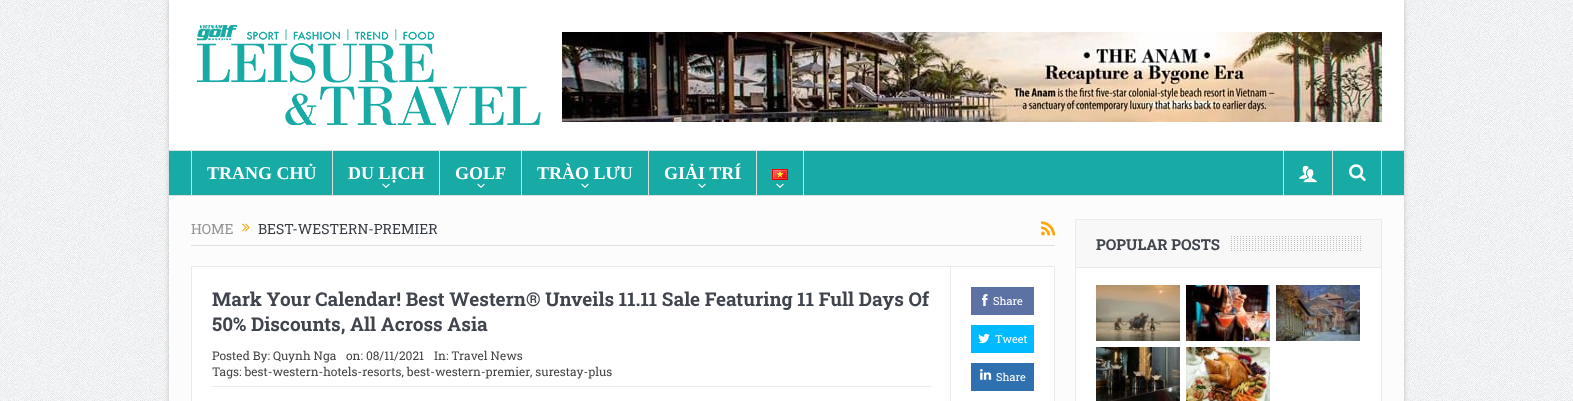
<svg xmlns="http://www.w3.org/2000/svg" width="1573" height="401">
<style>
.a{font:bold 18px Liberation Serif;fill:#fff}
.b{font:14px Roboto Slab;fill:#959595}
.c{font:14px Roboto Slab;fill:#373c43}
.d{font:bold 19px Roboto Slab;fill:#40454d}
.e{font:12px Roboto Slab;fill:#444}
.f{font:11px Roboto Slab;fill:#fff}
.g{font:bold 15px Roboto Slab;fill:#40454d}
</style>
<rect width="100%" height="100%" fill="#fff"/>
<image href="1.png" x="0" y="0" width="1573" height="401"/>
<path fill="#00000033" filter="blur(2.5px)" d="M169 0h1235v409H169z"/>
<path fill="#fcfcfc" d="M169 196h1235v205H169z"/>
<path fill="#fff" d="M169 0h1235v150H169z"/>
<image href="2.png" x="197" y="25" width="344" height="100"/>
<image href="3.png" x="562" y="32" width="820" height="90"/>
<path fill="#dfdfdf" d="M169 150h1235v1H169z"/>
<path fill="#18aaa5" d="M169 151h1235v44H169z"/>
<path fill="#dfdfdf" d="M169 195h1235v1H169z"/>
<path fill="#dfdfdf" d="M191 151h1v44H191z"/>
<path fill="#dfdfdf" d="M332 151h1v44H332z"/>
<image href="4.png" x="382" y="183" width="8" height="5"/>
<path fill="#dfdfdf" d="M439 151h1v44H439z"/>
<image href="4.png" x="477" y="183" width="8" height="5"/>
<path fill="#dfdfdf" d="M521 151h1v44H521z"/>
<image href="4.png" x="581" y="183" width="8" height="5"/>
<path fill="#dfdfdf" d="M648 151h1v44H648z"/>
<image href="4.png" x="698" y="183" width="8" height="5"/>
<path fill="#dfdfdf" d="M803 151h1v44H803z"/>
<path fill="#dfdfdf" d="M756 151h1v44H756z"/>
<image href="5.png" x="772" y="169" width="16" height="11"/>
<image href="4.png" x="776" y="183" width="8" height="5"/>
<path fill="#dfdfdf" d="M1332 151h1v44H1332z"/>
<path fill="#dfdfdf" d="M1283 151h1v44H1283z"/>
<image href="6.png" x="1299" y="165" width="18" height="18"/>
<path fill="#dfdfdf" d="M1381 151h1v44H1381z"/>
<image href="7.png" x="1349" y="164" width="17" height="17"/>
<path fill="#e0e0e0" d="M191 245h864v1H191z"/>
<image href="8.png" x="242" y="223" width="8" height="9"/>
<image href="9.png" x="1041" y="221" width="15" height="15"/>
<path fill="#fff" stroke="#eaeaea" d="M191.5 266.5h863v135H191.5z"/>
<path fill="#eaeaea" d="M212 386h719v1H212z"/>
<path fill="#eaeaea" d="M950 267h1v134H950z"/>
<path fill="#5d72a4" d="M971 287h63v28H971z"/>
<image href="10.png" x="982" y="294" width="6" height="13"/>
<path fill="#00baff" d="M971 325h63v28H971z"/>
<image href="11.png" x="978" y="333" width="12" height="11"/>
<path fill="#2f70b0" d="M971 363h63v28H971z"/>
<image href="12.png" x="980" y="369" width="12" height="11"/>
<path fill="#fff" d="M1076 268h305v133H1076z"/>
<path fill="none" stroke="#eaeaea" d="M1075.5 219.5h306v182H1075.5z"/>
<path fill="#f8f8f8" d="M1076 220h305v47H1076z"/>
<path fill="#eaeaea" d="M1076 267h305v1H1076z"/>
<image href="13.png" x="1231" y="236" width="130" height="15"/>
<image href="14.png" x="1096" y="285" width="84" height="56"/>
<image href="15.png" x="1186" y="285" width="84" height="56"/>
<image href="16.png" x="1276" y="285" width="84" height="56"/>
<image href="17.png" x="1096" y="347" width="84" height="54"/>
<image href="18.png" x="1186" y="347" width="84" height="54"/>
<text class="a" x="207" y="179">TRANG CHỦ</text>
<text class="a" x="348" y="179">DU LỊCH</text>
<text class="a" x="455" y="179">GOLF</text>
<text class="a" x="537" y="179">TRÀO LƯU</text>
<text class="a" x="664" y="179">GIẢI TRÍ</text>
<text class="b" x="191" y="234">HOME</text>
<text class="c" x="258" y="234">BEST-WESTERN-PREMIER</text>
<text class="d" x="212" y="306">Mark Your Calendar! Best Western® Unveils 11.11 Sale Featuring 11 Full Days Of</text>
<text class="d" x="212" y="331">50% Discounts, All Across Asia</text>
<text class="e" x="212" y="360">Posted By: Quynh Nga</text>
<text class="e" x="346" y="360">on: 08/11/2021</text>
<text class="e" x="434" y="360">In: Travel News</text>
<text class="e" x="212" y="376">Tags: best-western-hotels-resorts, best-western-premier</text>
<text class="e" x="530" y="376">, surestay-plus</text>
<text class="f" x="993" y="305">Share</text>
<text class="f" x="995" y="343">Tweet</text>
<text class="f" x="996" y="381">Share</text>
<text class="g" x="1096" y="250">POPULAR POSTS</text>
</svg>
